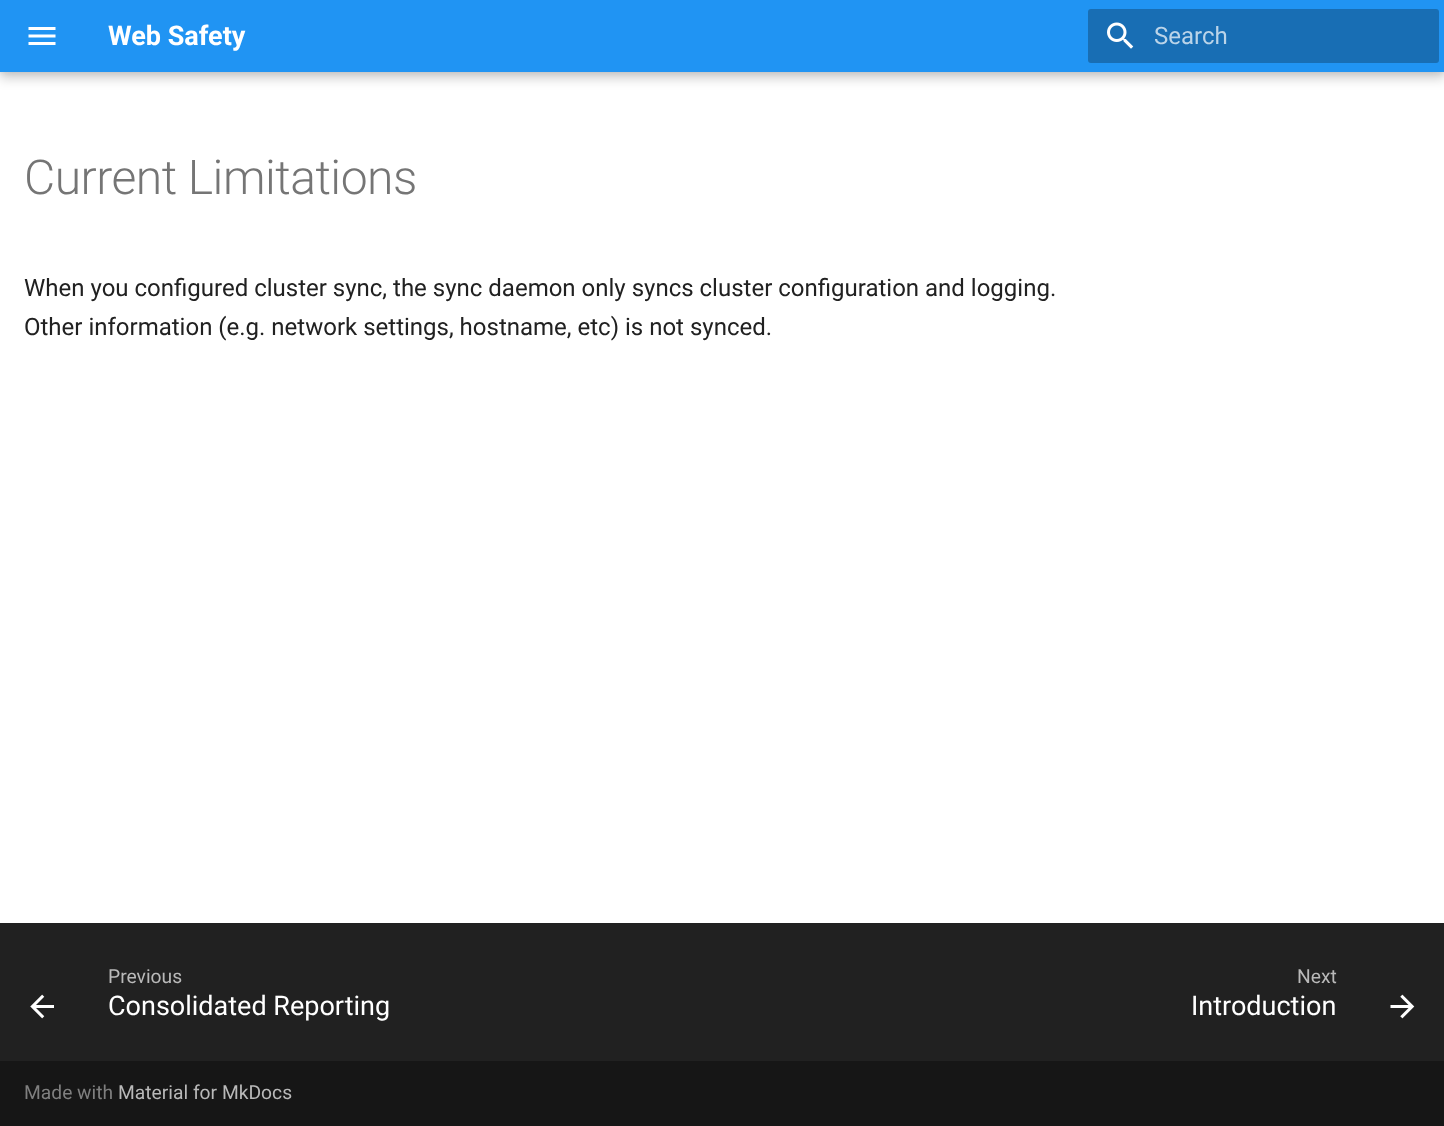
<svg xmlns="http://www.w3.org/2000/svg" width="1444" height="1126">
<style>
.a{font:bold 27px Roboto;fill:#fff}
.b{font:24px Roboto;fill:#bad4e9}
.c{font:300 48px Roboto;letter-spacing:-0.5px;fill:#757575}
.d{font:24px Roboto;fill:#212121}
.e{font:19.25px Roboto;fill:#b9b9b9}
.f{font:27px Roboto;fill:#fff}
.g{font:19.25px Roboto;fill:#7f7f7f}
</style>
<rect width="100%" height="100%" fill="#fff"/>
<path fill="#00000033" filter="blur(6px)" d="M0 6h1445v72H0z"/>
<path fill="#0000001a" filter="blur(3px)" d="M0 0h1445v72H0z"/>
<path fill="#2094f3" d="M0 0h1444v72H0z"/>
<image href="1.png" x="28" y="27" width="28" height="18"/>
<rect fill="#186eb4" x="1088" y="9" width="351" height="54" rx="3"/>
<image href="2.png" x="1107" y="22" width="27" height="27"/>
<path fill="#212121" d="M0 923h1444v138H0z"/>
<image href="3.png" x="30" y="994" width="24" height="25"/>
<image href="4.png" x="1390" y="994" width="25" height="25"/>
<path fill="#161616" d="M0 1061h1444v65H0z"/>
<text class="a" x="108" y="45">Web Safety</text>
<text class="b" x="1154" y="44">Search</text>
<text class="c" x="24" y="194">Current Limitations</text>
<text class="d" x="24" y="296">When you configured cluster sync, the sync daemon only syncs cluster configuration and logging.</text>
<text class="d" x="24" y="335">Other information (e.g. network settings, hostname, etc) is not synced.</text>
<text class="e" x="108" y="983">Previous</text>
<text class="f" x="108" y="1015">Consolidated Reporting</text>
<text class="e" x="1297" y="983">Next</text>
<text class="f" x="1191" y="1015">Introduction</text>
<text class="g" x="24" y="1099">Made with</text>
<text class="e" x="118" y="1099">Material for MkDocs</text>
</svg>
